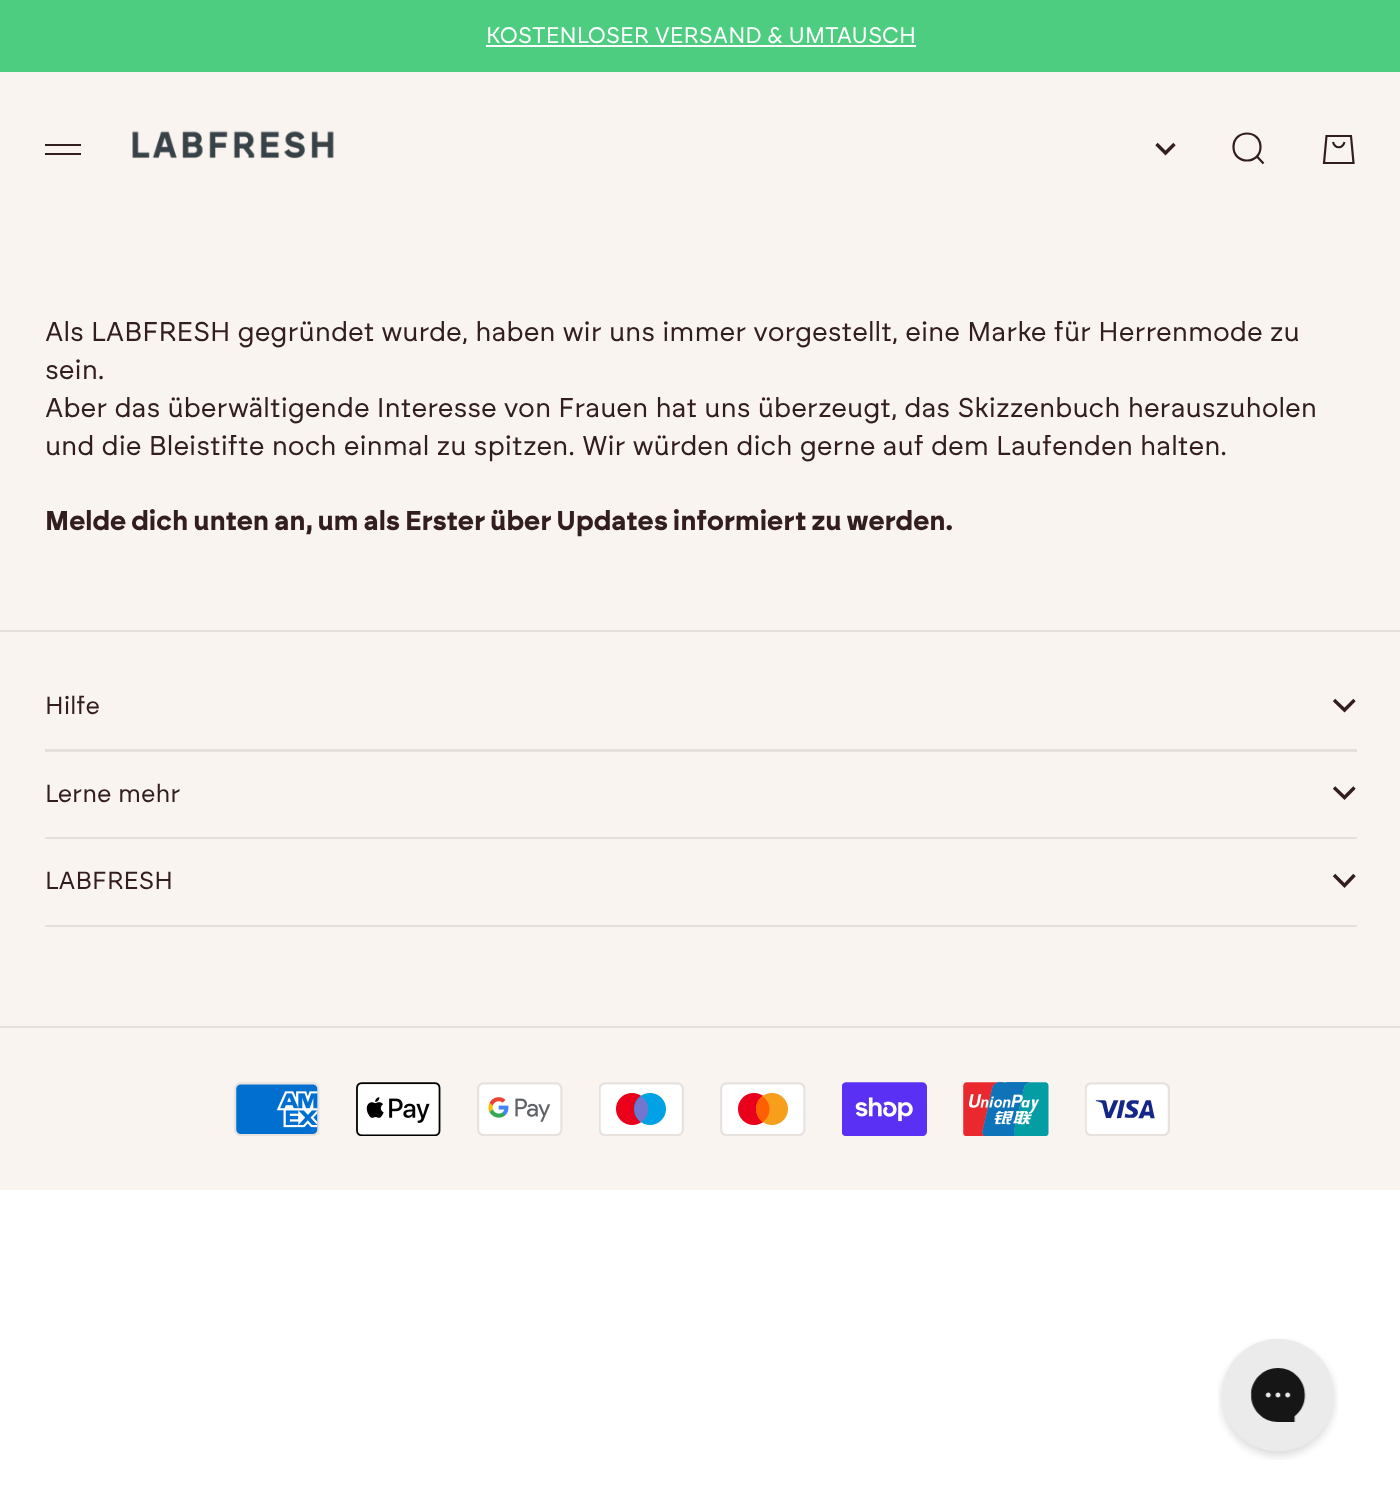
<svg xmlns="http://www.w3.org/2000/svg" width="1400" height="1512">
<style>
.a{font:22.5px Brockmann;fill:#fff}
.b{font:27px Brockmann;fill:#321e1e}
.c{font:bold 27px Brockmann;fill:#321e1e}
.d{font:24.75px Brockmann;fill:#321e1e}
</style>
<rect width="100%" height="100%" fill="#fff"/>
<path fill="#4dcd80" d="M0 0h1400v72H0z"/>
<path fill="#fff" d="M486 45h430v2H486z"/>
<path fill="#faf4f0" d="M0 72h1400v558H0z"/>
<path fill="#321e1e" d="M45 144h36v2H45z"/>
<path fill="#321e1e" d="M45 153h36v2H45z"/>
<image href="1.png" x="132" y="130" width="202" height="29"/>
<path fill="none" stroke="#321e1e" stroke-width="3.4" d="M1156.5 144l9 9l9-9"/>
<path fill="none" stroke="#321e1e" stroke-width="2.2" d="M1233.5 147c0 18 27 18 27 0c0-18-27-18-27 0zm23.5 9.5l6.5 7"/>
<path fill="none" stroke="#321e1e" stroke-width="2.2" d="M1324 163l2.5-27h24.5l2.5 27zm9-21c2 7 9.5 7 11.5 0"/>
<path fill="#faf4f0" d="M0 632h1400v558H0z"/>
<path fill="#e6dfdb" d="M0 630h1400v2H0z"/>
<path fill="#e6dfdb" d="M45 749v3h1312v-88v85z"/>
<path fill="none" stroke="#321e1e" stroke-width="3.4" d="M1354.5 700l-10 10l-10.5-10"/>
<path fill="#e6dfdb" d="M45 837v2h1312v-87v85z"/>
<path fill="none" stroke="#321e1e" stroke-width="3.4" d="M1354.5 787.5l-10 10l-10.5-10"/>
<path fill="#e6dfdb" d="M45 925v2h1312v-88v86z"/>
<path fill="none" stroke="#321e1e" stroke-width="3.4" d="M1354.5 875l-10 10.5l-10.5-10.5"/>
<path fill="#e6dfdb" d="M0 1026h1400v2H0z"/>
<image href="2.png" x="234" y="1082" width="86" height="54"/>
<image href="3.png" x="356" y="1082" width="85" height="54"/>
<image href="4.png" x="477" y="1082" width="86" height="54"/>
<image href="5.png" x="599" y="1082" width="85" height="54"/>
<image href="6.png" x="720" y="1082" width="86" height="54"/>
<image href="7.png" x="842" y="1082" width="85" height="54"/>
<image href="8.png" x="963" y="1082" width="86" height="54"/>
<image href="9.png" x="1085" y="1082" width="85" height="54"/>
<image href="10.png" x="1218" y="1338" width="120" height="122"/>
<text class="a" x="486" y="43">KOSTENLOSER VERSAND &amp; UMTAUSCH</text>
<text class="b" x="45" y="341">Als LABFRESH gegründet wurde, haben wir uns immer vorgestellt, eine Marke für Herrenmode zu</text>
<text class="b" x="45" y="379">sein.</text>
<text class="b" x="45" y="417">Aber das überwältigende Interesse von Frauen hat uns überzeugt, das Skizzenbuch herauszuholen</text>
<text class="b" x="45" y="455">und die Bleistifte noch einmal zu spitzen. Wir würden dich gerne auf dem Laufenden halten.</text>
<text class="c" x="45" y="530">Melde dich unten an, um als Erster über Updates informiert zu werden.</text>
<text class="d" x="45" y="714">Hilfe</text>
<text class="d" x="45" y="802">Lerne mehr</text>
<text class="d" x="45" y="889">LABFRESH</text>
</svg>
